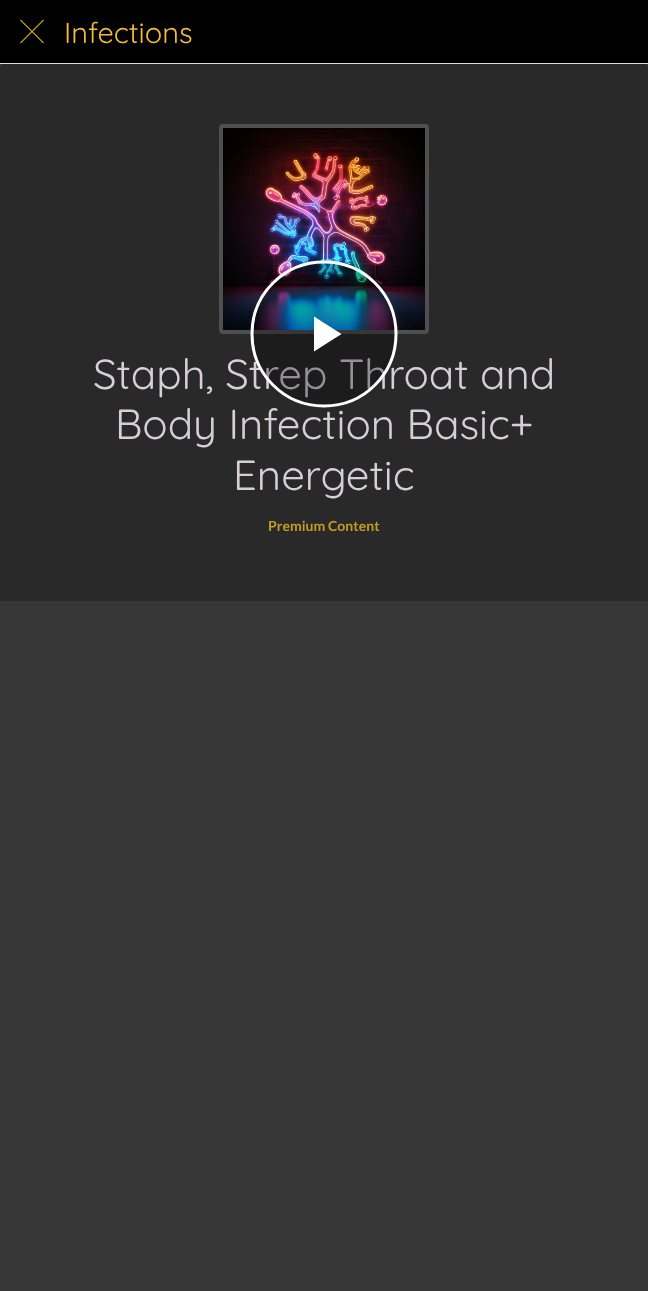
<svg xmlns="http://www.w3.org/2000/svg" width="648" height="1291">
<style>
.a{font:300 29px Quicksand;fill:#f2bb3a}
.b{font:300 42px Quicksand;fill:#d6cfd6}
.c{font:bold 14px Lato;fill:#c49c25}
</style>
<rect width="100%" height="100%" fill="#363636"/>
<path fill="#000" d="M0 0h648v63H0z"/>
<path fill="#ddd" d="M0 63h648v1H0z"/>
<image href="1.png" x="20" y="19" width="24" height="25"/>
<path fill="#292929" d="M4 64h640c2 0 4 2 4 4v533h-648v-533c0-2 2-4 4-4z"/>
<image href="2.png" x="223" y="128" width="202" height="202"/>
<rect fill="none" stroke="#4f4f4f" stroke-width="4" x="221" y="126" width="206" height="206" rx="2"/>
<text class="a" x="64" y="43">Infections</text>
<text class="b" x="93" y="389">Staph, Strep Throat and</text>
<circle fill="#0000004d" cx="324" cy="334" r="72"/>
<text class="b" x="115" y="439">Body Infection Basic+</text>
<path fill="none" stroke="#fff" stroke-width="3" d="M324 262c40 0 72 32 72 72c0 40-32 72-72 72c-40 0-72-32-72-72c0-40 32-72 72-72"/>
<path fill="#fff" d="M314 316.5v35l27.5-17.5z"/>
<text class="b" x="233" y="490">Energetic</text>
<text class="c" x="268" y="531">Premium Content</text>
</svg>
